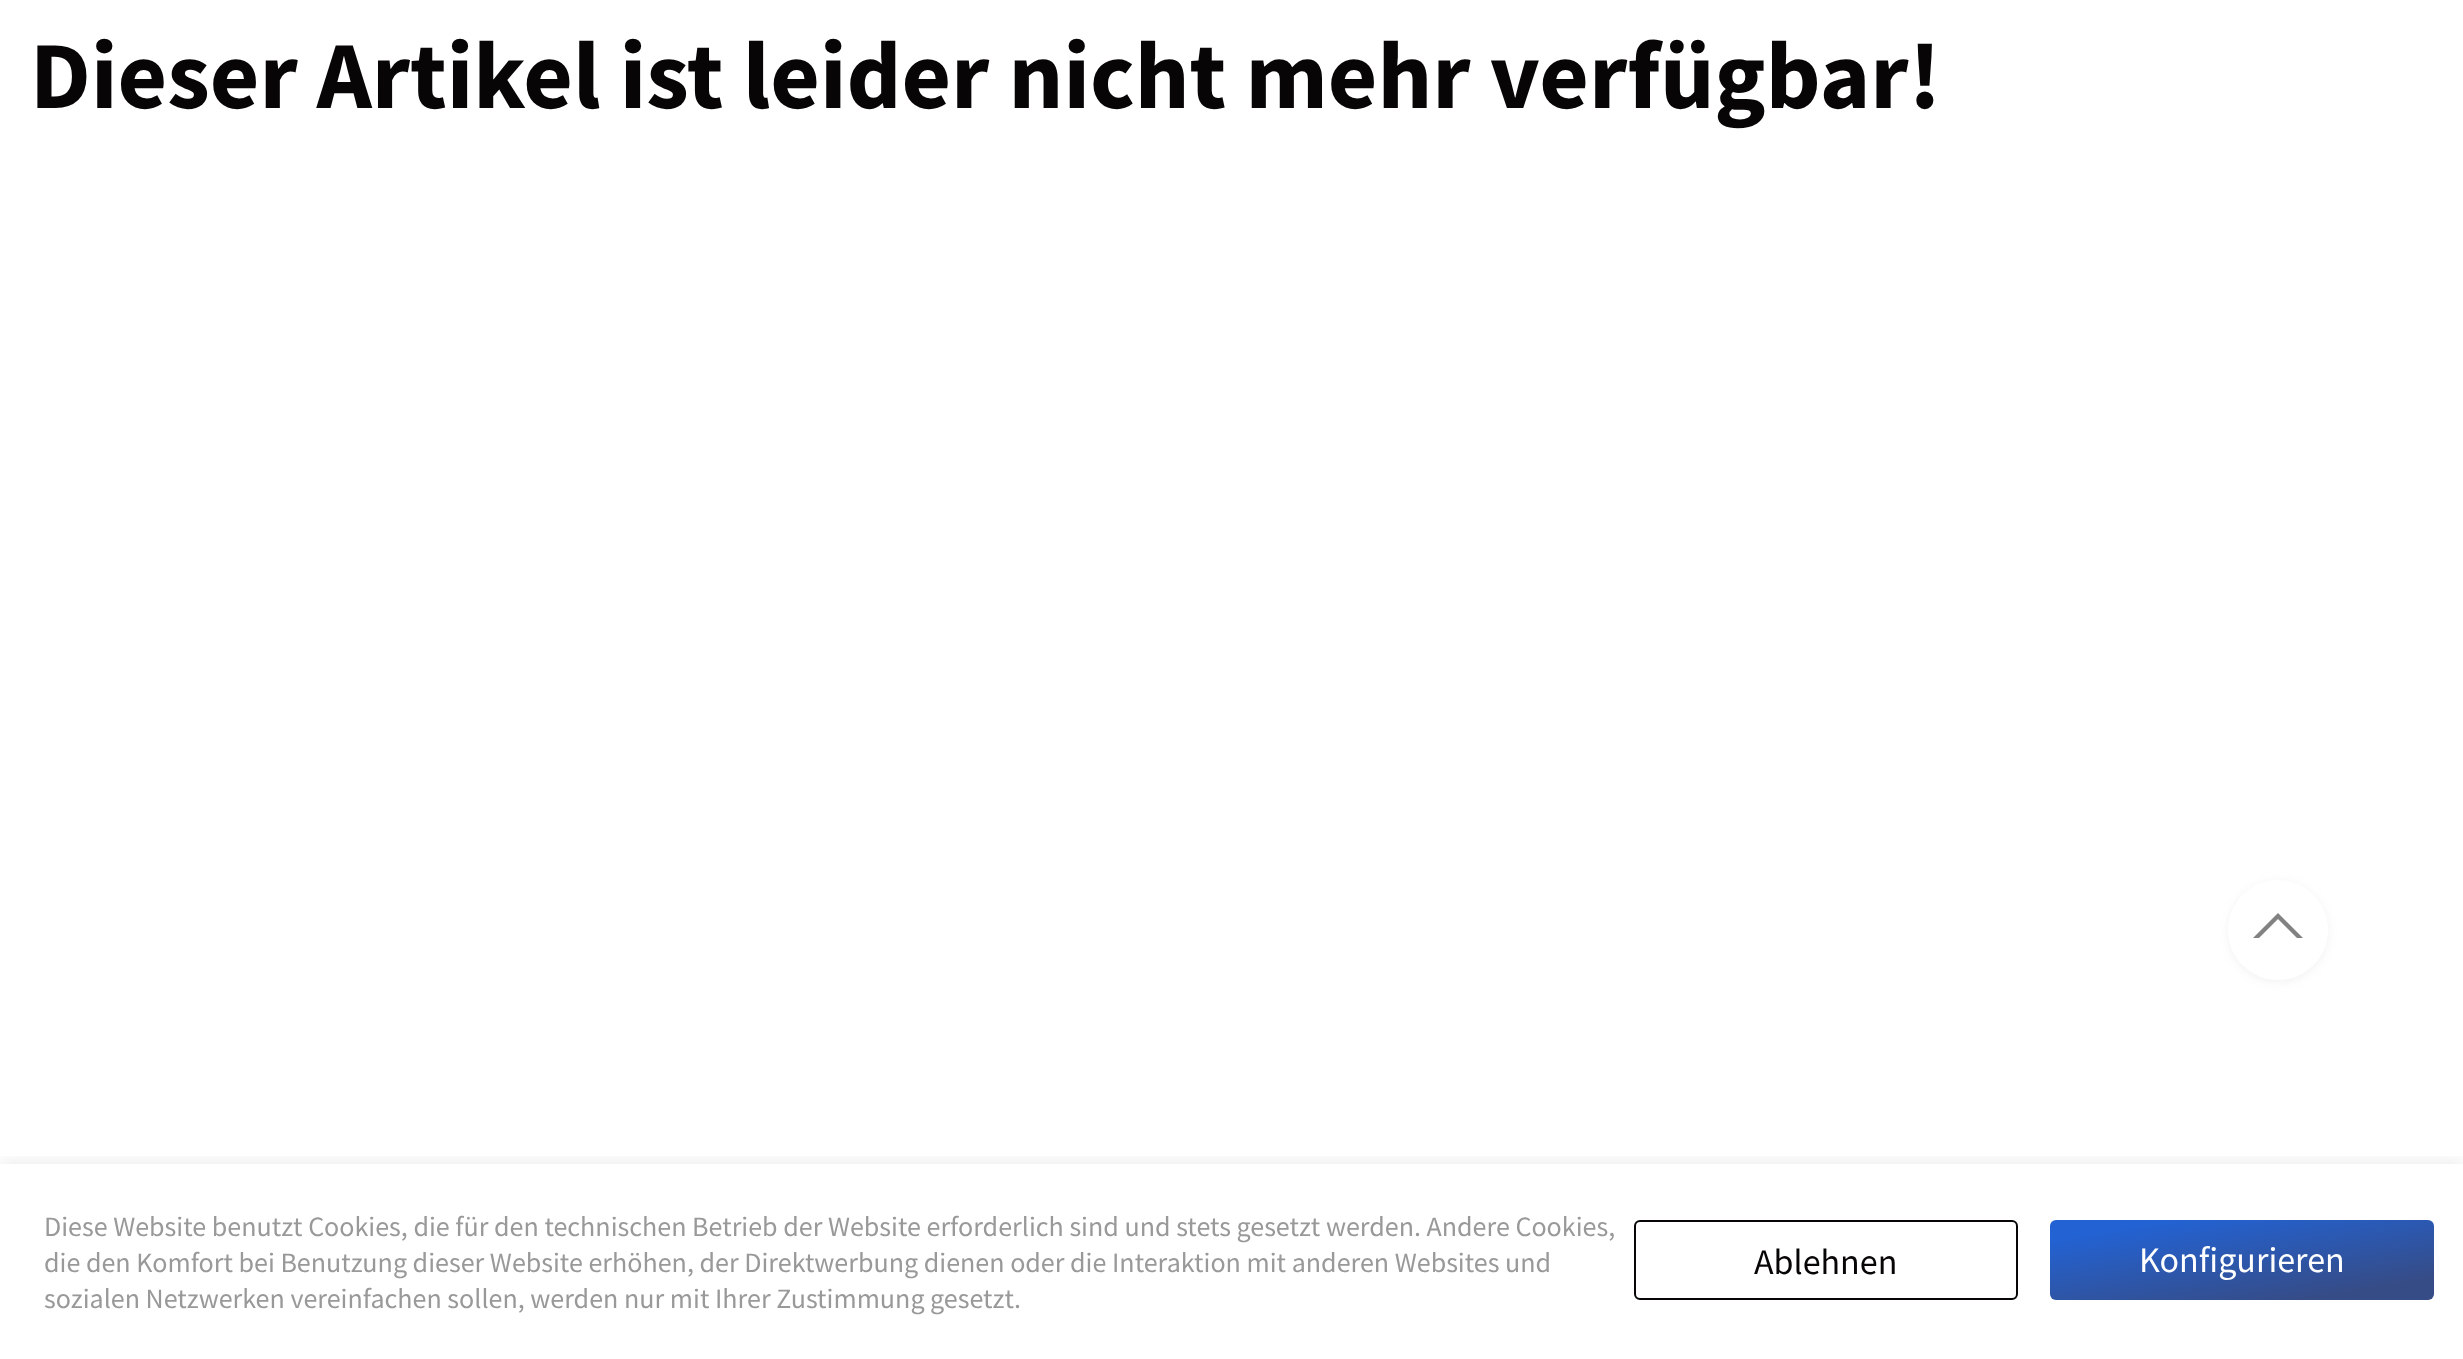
<svg xmlns="http://www.w3.org/2000/svg" width="2463" height="1359">
<style>
.a{font:bold 96px Source Sans Pro;fill:#070505}
.b{font:28px Source Sans Pro;fill:#999}
.c{font:36px Source Sans Pro;fill:#070505}
.d{font:36px Source Sans Pro;fill:#fff}
</style>
<defs>
<clipPath id="clip1"><path d="M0 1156h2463v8H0z"/></clipPath>
<linearGradient id="g1" gradientUnits="userSpaceOnUse" x1="2230" y1="1189" x2="2254" y2="1331"><stop offset="0.15" stop-color="#2362d2"/><stop offset="0.85" stop-color="#364c86"/></linearGradient>
</defs>
<rect width="100%" height="100%" fill="#fff"/>
<rect fill="#8080801a" filter="blur(5px)" x="2228" y="882" width="100" height="100" rx="50"/>
<circle fill="#fff" cx="2278" cy="930" r="50"/>
<path fill="#838282" d="M2259 938l19-19l19 19h6l-25-25l-25 25z"/>
<g clip-path="url(#clip1)">
<path fill="#0000001a" filter="blur(10px)" d="M0 1164h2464v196H0z"/>
</g>
<rect fill="none" stroke="#070505" stroke-width="2" x="1635" y="1221" width="382" height="78" rx="5"/>
<rect fill="url(#g1)" x="2050" y="1220" width="384" height="80" rx="6"/>
<text class="a" x="30" y="108">Dieser Artikel ist leider nicht mehr verfügbar!</text>
<text class="b" x="44" y="1236">Diese Website benutzt Cookies, die für den technischen Betrieb der Website erforderlich sind und stets gesetzt werden. Andere Cookies,</text>
<text class="b" x="44" y="1272">die den Komfort bei Benutzung dieser Website erhöhen, der Direktwerbung dienen oder die Interaktion mit anderen Websites und</text>
<text class="b" x="44" y="1308">sozialen Netzwerken vereinfachen sollen, werden nur mit Ihrer Zustimmung gesetzt.</text>
<text class="c" x="1754" y="1274">Ablehnen</text>
<text class="d" x="2139" y="1272">Konfigurieren</text>
</svg>
